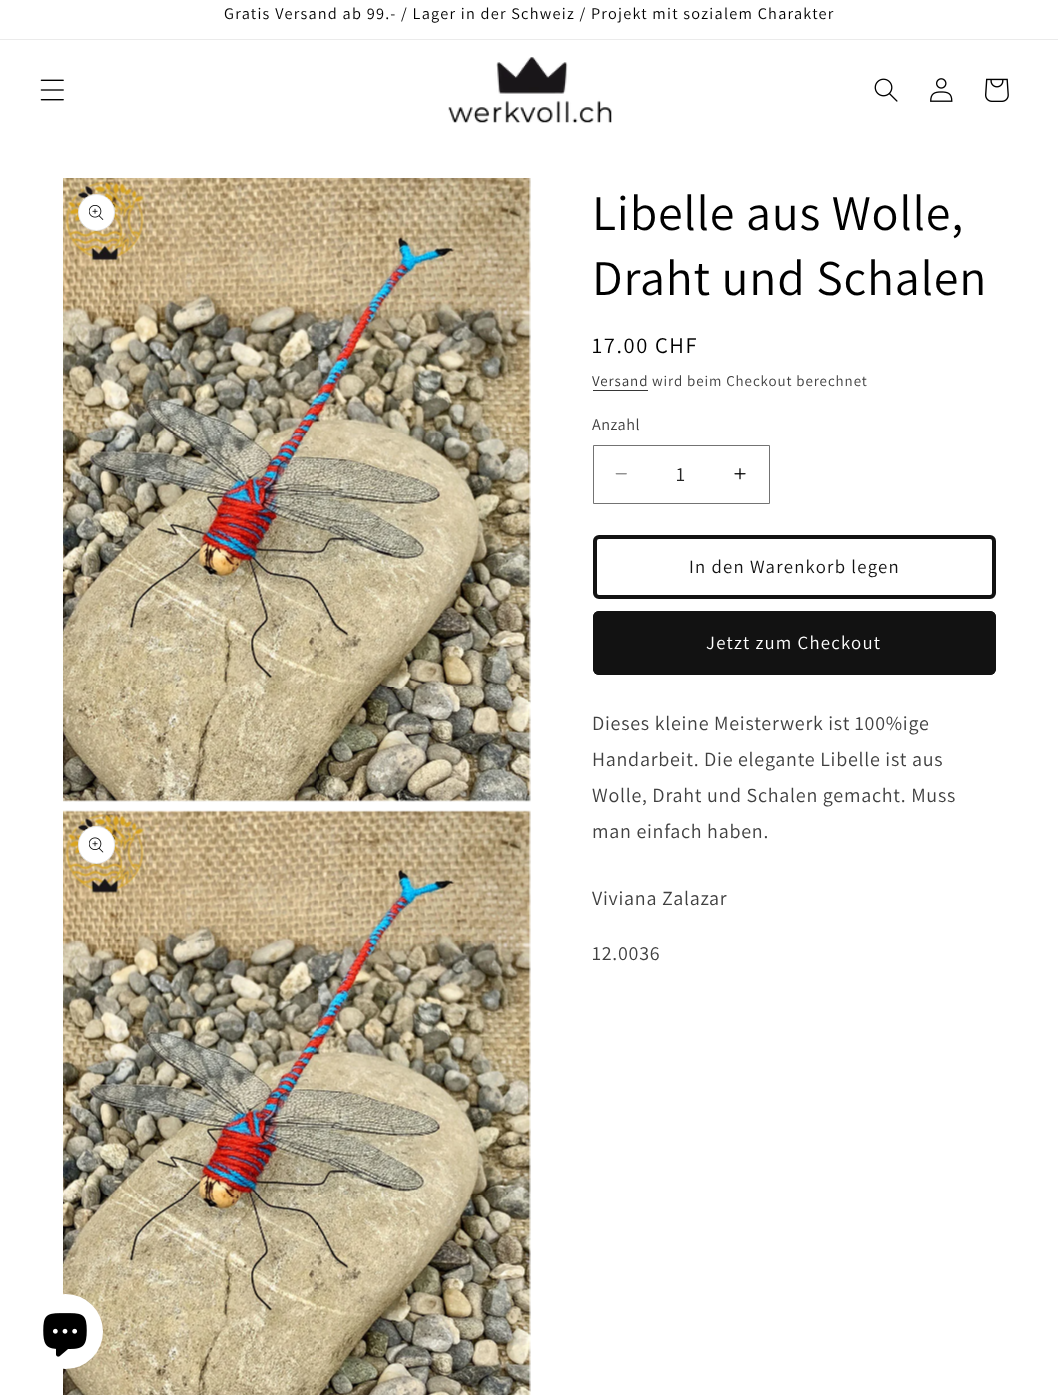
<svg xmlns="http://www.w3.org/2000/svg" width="1058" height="1395">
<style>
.a{font:16.25px Assistant;letter-spacing:1.25px;fill:#000}
.b{font:50px Assistant;letter-spacing:0.75px;fill:#000}
.c{font:22.5px Assistant;letter-spacing:1.6px;fill:#000}
.d{font:15px Assistant;letter-spacing:0.9px;fill:#363636}
.e{font:15px Assistant;letter-spacing:0.9px;fill:#404040}
.f{font:16.25px Assistant;letter-spacing:0.5px;fill:#404040}
.g{font:20px Assistant;fill:#262626}
.h{font:18.75px Assistant;letter-spacing:1.25px;fill:#121212}
.i{font:18.75px Assistant;letter-spacing:1.25px;fill:#fff}
.j{font:20px Assistant;letter-spacing:0.75px;fill:#404040}
</style>
<rect width="100%" height="100%" fill="#fff"/>
<path fill="#ebebeb" d="M0 39h1058v1H0z"/>
<image href="1.png" x="40" y="79" width="24" height="22"/>
<image href="2.png" x="448" y="57" width="164" height="66"/>
<image href="3.png" x="874" y="78" width="24" height="24"/>
<image href="4.png" x="930" y="78" width="23" height="24"/>
<image href="5.png" x="985" y="78" width="24" height="24"/>
<image href="6.png" x="63" y="178" width="468" height="624"/>
<circle fill="#fff" cx="96.5" cy="212.5" r="18.5"/>
<circle fill="none" stroke="#0000001a" cx="96.5" cy="212.5" r="18"/>
<image href="7.png" x="89" y="205" width="15" height="15"/>
<image href="8.png" x="63" y="810" width="468" height="585"/>
<rect fill="#fff" x="78" y="826" width="37" height="38" rx="18.5"/>
<rect fill="none" stroke="#0000001a" x="78.5" y="826.5" width="36" height="37" rx="18"/>
<image href="9.png" x="89" y="837" width="15" height="16"/>
<path fill="#363636" d="M593 390h55v1H593z"/>
<image href="10.png" x="615" y="473" width="12" height="2"/>
<image href="11.png" x="734" y="468" width="12" height="12"/>
<path fill="none" stroke="#737373" d="M593.5 445.5h176v58H593.5z"/>
<rect fill="none" stroke="#121212" stroke-width="4" x="595" y="537" width="399" height="60" rx="4"/>
<rect fill="#121212" x="593" y="611" width="403" height="64" rx="6"/>
<rect fill="none" stroke="#121212" stroke-width="4" x="595" y="613" width="399" height="60" rx="4"/>
<circle fill="#fff" cx="65.5" cy="1331.5" r="37.5"/>
<image href="12.png" x="43" y="1313" width="44" height="44"/>
<text class="a" x="224" y="19">Gratis Versand ab 99.- / Lager in der Schweiz / Projekt mit sozialem Charakter</text>
<text class="b" x="592" y="230">Libelle aus Wolle,</text>
<text class="b" x="592" y="295">Draht und Schalen</text>
<text class="c" x="592" y="353">17.00 CHF</text>
<text class="d" x="592" y="386">Versand</text>
<text class="e" x="652" y="386">wird beim Checkout berechnet</text>
<text class="f" x="592" y="430">Anzahl</text>
<text class="g" x="676" y="481">1</text>
<text class="h" x="689" y="573">In den Warenkorb legen</text>
<text class="i" x="706" y="649">Jetzt zum Checkout</text>
<text class="j" x="592" y="730">Dieses kleine Meisterwerk ist 100%ige</text>
<text class="j" x="592" y="766">Handarbeit. Die elegante Libelle ist aus</text>
<text class="j" x="592" y="802">Wolle, Draht und Schalen gemacht. Muss</text>
<text class="j" x="592" y="838">man einfach haben.</text>
<text class="j" x="592" y="905">Viviana Zalazar</text>
<text class="j" x="592" y="960">12.0036</text>
</svg>
